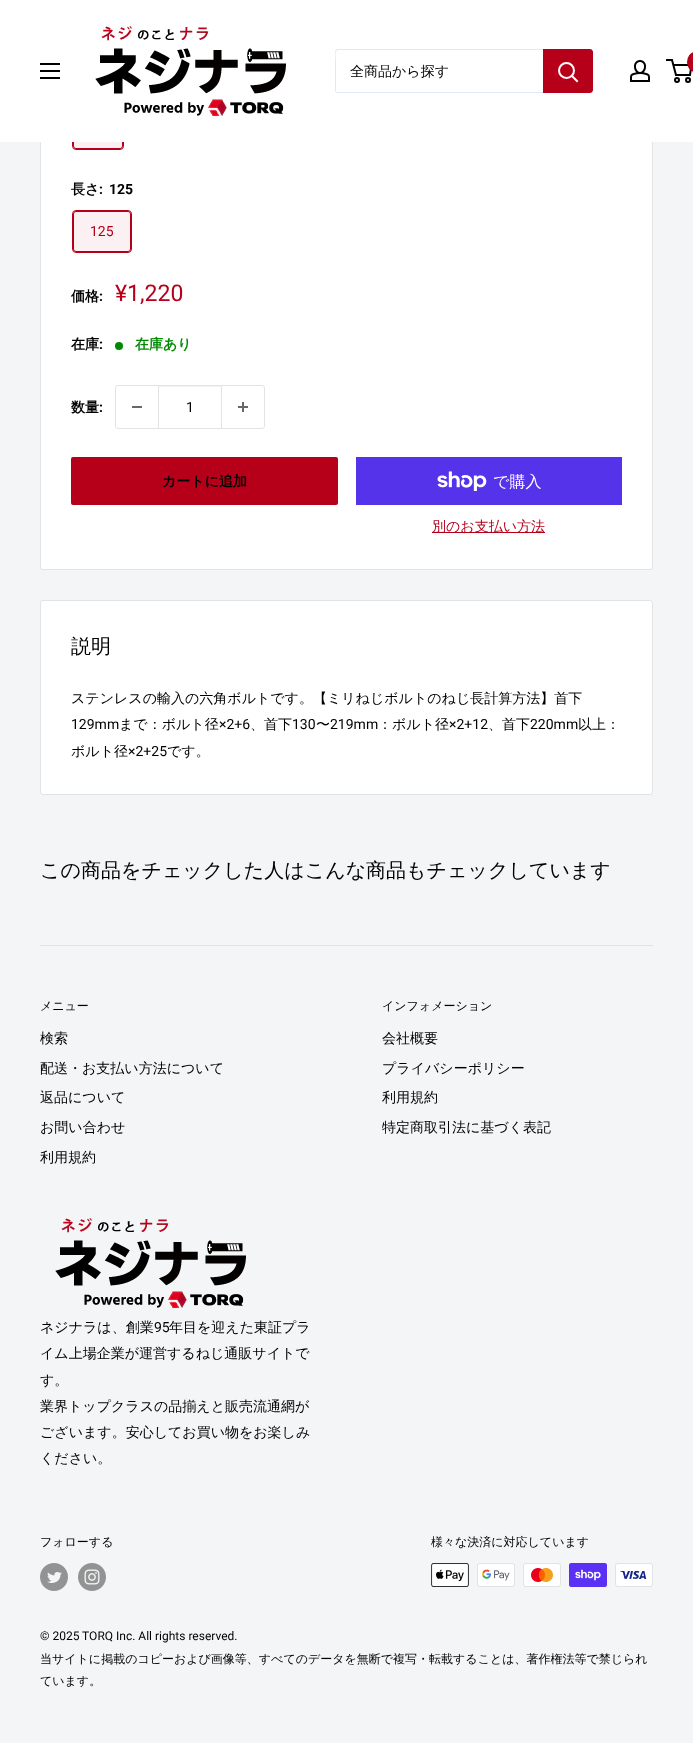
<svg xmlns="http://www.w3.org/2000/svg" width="693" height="1743">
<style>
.a{font:500 14px WenQuanYi Zen Hei;fill:#000}
.b{font:bold 14px WenQuanYi Zen Hei;fill:#000}
.c{font:bold 14px Roboto;fill:#000}
.d{font:14px Roboto;fill:#b6001a}
.e{font:23px Roboto;fill:#b6001a}
.f{font:bold 14px WenQuanYi Zen Hei;fill:#008a00}
.g{font:14px Roboto;fill:#000}
.h{font:500 16px WenQuanYi Zen Hei;fill:#fff}
.i{font:500 14px WenQuanYi Zen Hei;fill:#b6001a}
.j{font:500 20px WenQuanYi Zen Hei;fill:#000}
.k{font:500 12px WenQuanYi Zen Hei;fill:#000}
.l{font:12px Roboto;fill:#000}
</style>
<rect width="100%" height="100%" fill="#f3f5f6"/>
<rect fill="#fff" x="40" y="-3" width="613" height="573" rx="3"/>
<path fill="#e1e3e4" fill-rule="evenodd" d="M43-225h607c2 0 3 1 3 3v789c0 2-1 3-3 3h-607c-2 0-3-1-3-3v-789c0-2 1-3 3-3zm0 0h607c1 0 2 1 2 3v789c0 1-1 2-2 2h-607c-1 0-2-1-2-2v-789c0-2 1-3 2-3z"/>
<rect fill="none" stroke="#b6001a" x="72.5" y="107.5" width="51" height="42" rx="3.5"/>
<path fill="#b6001a0f" d="M73 142h50v7H73z"/>
<rect fill="none" stroke="#b6001a" x="73.5" y="108.5" width="49" height="40" rx="2.5"/>
<path fill="#fff" d="M0 0h693v142H0z"/>
<image href="1.png" x="40" y="63" width="20" height="16"/>
<image href="2.png" x="95" y="26" width="191" height="90"/>
<path fill="#e3e7fa" d="M336 92c0 1 1 1 2 1h252c2 0 3-1 3-3v-38c0-1 0-2-1-2v33c0 2 2 9-3 9z"/>
<path fill="#e3e7fa" d="M339 50h253c0-1-1-1-2-1h-252c-2 0-3 1-3 3v38c0 1 0 2 1 2v-33c0-2-2-9 3-9z"/>
<path fill="#b6001a" d="M543 49h47c1.5 0 3 1.5 3 3v38c0 1.5-1.5 3-3 3h-47z"/>
<path fill="none" stroke="#fff" stroke-width="2" stroke-linecap="square" d="M577 81l-5-5"/>
<circle fill="none" stroke="#fff" stroke-width="2" cx="566.5" cy="70.5" r="7.5"/>
<image href="3.png" x="630" y="60" width="20" height="22"/>
<circle fill="none" stroke="#000" stroke-width="2" cx="677" cy="80" r="2"/>
<circle fill="none" stroke="#000" stroke-width="2" cx="688" cy="80" r="2"/>
<path fill="none" stroke="#000" stroke-width="2" d="M673.5 65h18l-1.5 10h-14l-4-15h-6"/>
<rect fill="#b6001a" x="687" y="52" width="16" height="20" rx="10"/>
<rect fill="none" stroke="#b6001a" x="72.5" y="210.5" width="59" height="42" rx="3.5"/>
<path fill="#b6001a0f" d="M73 211h58v41H73z"/>
<rect fill="none" stroke="#b6001a" x="73.5" y="211.5" width="57" height="40" rx="2.5"/>
<circle fill="#008a00" cx="119" cy="346" r="4"/>
<rect fill="none" stroke="#e1e3e4" x="115.5" y="385.5" width="149" height="43" rx="2.5"/>
<path fill="#686868" d="M132 406h10v2H132z"/>
<path fill="#f3f4f4" d="M159 386h62v1H159z"/>
<path fill="#e1e3e4" d="M221 386h1v42H221z"/>
<path fill="#e1e3e4" d="M158 386h1v42H158z"/>
<image href="4.png" x="238" y="402" width="10" height="10"/>
<rect fill="#b6001a" x="71" y="457" width="267" height="48" rx="2"/>
<path fill="#5433eb" d="M356 457h266v48H356z"/>
<image href="5.png" x="437" y="471" width="50" height="20"/>
<path fill="#b6001a" d="M432 532h113v1H432z"/>
<rect fill="#fff" stroke="#e1e3e4" x="40.5" y="600.5" width="612" height="194" rx="2.5"/>
<path fill="#e1e3e4" d="M40 945h613v1H40z"/>
<image href="6.png" x="55" y="1218" width="191" height="90"/>
<image href="7.png" x="40" y="1563" width="28" height="28"/>
<image href="8.png" x="78" y="1563" width="28" height="28"/>
<image href="9.png" x="431" y="1563" width="38" height="24"/>
<image href="10.png" x="477" y="1563" width="38" height="24"/>
<image href="11.png" x="523" y="1563" width="38" height="24"/>
<image href="12.png" x="569" y="1563" width="38" height="24"/>
<image href="13.png" x="615" y="1563" width="38" height="24"/>
<text class="a" x="350" y="76">全商品から探す</text>
<text class="b" x="71" y="194">長さ</text>
<text class="c" x="99" y="194">:</text>
<text class="c" x="109" y="194">125</text>
<text class="d" x="90" y="236">125</text>
<text class="b" x="71" y="301">価格</text>
<text class="c" x="99" y="301">:</text>
<text class="e" x="115" y="301">¥1,220</text>
<text class="b" x="71" y="349">在庫</text>
<text class="c" x="99" y="349">:</text>
<text class="f" x="135" y="349">在庫あり</text>
<text class="b" x="71" y="412">数量</text>
<text class="c" x="99" y="412">:</text>
<text class="g" x="186" y="412">1</text>
<text class="b" x="162" y="486">カートに追加</text>
<text class="h" x="493" y="487">で購入</text>
<text class="i" x="432" y="531">別のお支払い方法</text>
<text class="j" x="71" y="653">説明</text>
<text class="a" x="71" y="703">ステンレスの輸入の六角ボルトです。【ミリねじボルトのねじ長計算方法】首下</text>
<text class="g" x="71" y="729">129mm</text>
<text class="a" x="119" y="729">まで：ボルト径</text>
<text class="g" x="219" y="729">×2+6</text>
<text class="a" x="250" y="729">、首下</text>
<text class="g" x="292" y="729">130</text>
<text class="a" x="316" y="729">〜</text>
<text class="g" x="330" y="729">219mm</text>
<text class="a" x="378" y="729">：ボルト径</text>
<text class="g" x="449" y="729">×2+12</text>
<text class="a" x="488" y="729">、首下</text>
<text class="g" x="530" y="729">220mm</text>
<text class="a" x="578" y="729">以上：</text>
<text class="a" x="71" y="756">ボルト径</text>
<text class="g" x="128" y="756">×2+25</text>
<text class="a" x="167" y="756">です。</text>
<text class="j" x="40" y="877">この商品をチェックした人はこんな商品もチェックしています</text>
<text class="k" x="40" y="1010">メニュー</text>
<text class="a" x="40" y="1043">検索</text>
<text class="a" x="40" y="1073">配送・お支払い方法について</text>
<text class="a" x="40" y="1102">返品について</text>
<text class="a" x="40" y="1132">お問い合わせ</text>
<text class="a" x="40" y="1162">利用規約</text>
<text class="k" x="382" y="1010">インフォメーション</text>
<text class="a" x="382" y="1043">会社概要</text>
<text class="a" x="382" y="1073">プライバシーポリシー</text>
<text class="a" x="382" y="1102">利用規約</text>
<text class="a" x="382" y="1132">特定商取引法に基づく表記</text>
<text class="a" x="40" y="1332">ネジナラは、創業</text>
<text class="g" x="154" y="1332">95</text>
<text class="a" x="169" y="1332">年目を迎えた東証プラ</text>
<text class="a" x="40" y="1358">イム上場企業が運営するねじ通販サイトで</text>
<text class="a" x="40" y="1385">す。</text>
<text class="a" x="40" y="1411">業界トップクラスの品揃えと販売流通網が</text>
<text class="a" x="40" y="1437">ございます。安心してお買い物をお楽しみ</text>
<text class="a" x="40" y="1463">ください。</text>
<text class="k" x="40" y="1546">フォローする</text>
<text class="k" x="431" y="1546">様々な決済に対応しています</text>
<text class="l" x="40" y="1640">© 2025 TORQ Inc. All rights reserved.</text>
<text class="k" x="40" y="1663">当サイトに掲載のコピーおよび画像等、すべてのデータを無断で複写・転載することは、著作権法等で禁じられ</text>
<text class="k" x="40" y="1685">ています。</text>
</svg>
